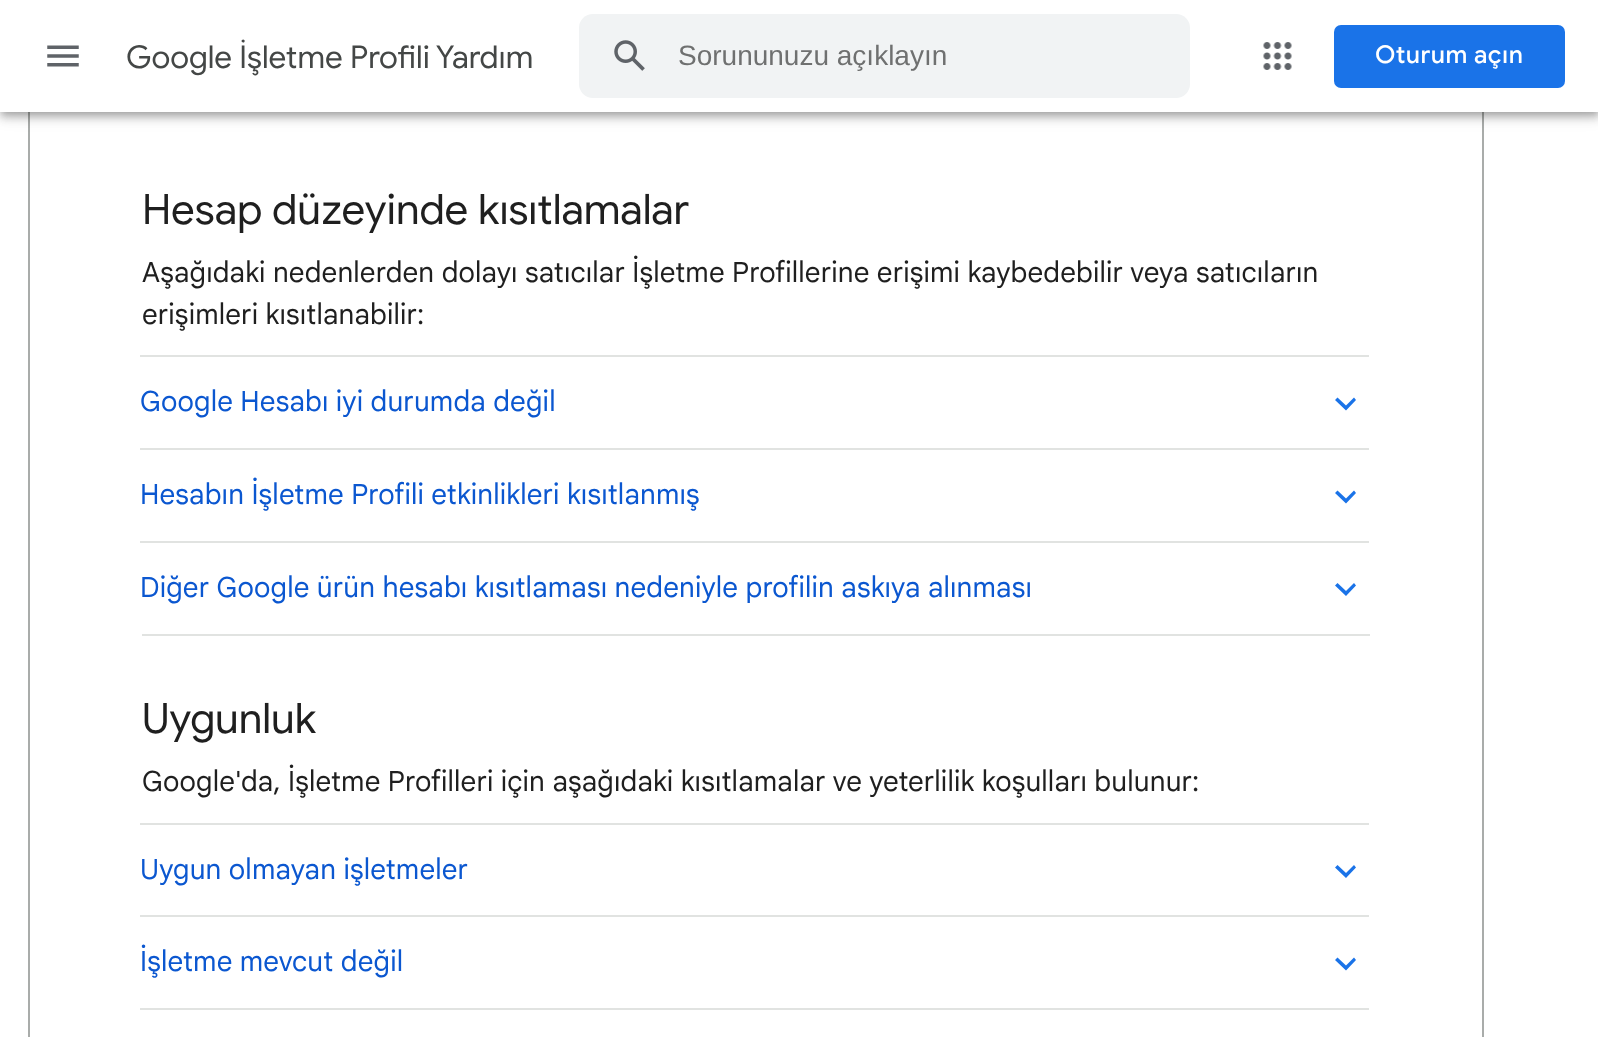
<svg xmlns="http://www.w3.org/2000/svg" width="1598" height="1037">
<style>
.a{font:31.5px Google Sans;fill:#444746}
.b{font:28px Liberation Sans;fill:#6f7070}
.c{font:500 24.5px Google Sans;letter-spacing:0.5px;fill:#fff}
.d{font:42px Google Sans;fill:#1f1f1f}
.e{font:28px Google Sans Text;letter-spacing:0.15px;fill:#1f1f1f}
.f{font:28px Google Sans Text;letter-spacing:0.15px;fill:#0b57d0}
</style>
<rect width="100%" height="100%" fill="#fff"/>
<path fill="none" stroke="#a9acaa" stroke-width="2" d="M29 -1h1454v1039H29z"/>
<path fill="#00000033" filter="blur(3.5px)" d="M2 5h1596v109H2z"/>
<path fill="#0000001f" filter="blur(9px)" d="M0 2h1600v112H0z"/>
<path fill="#00000024" filter="blur(4.5px)" d="M0 7h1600v112H0z"/>
<path fill="#fff" d="M0 0h1598v112H0z"/>
<image href="1.png" x="47" y="45" width="32" height="22"/>
<rect fill="#f1f3f4" x="579" y="14" width="611" height="84" rx="14"/>
<image href="2.png" x="614" y="40" width="31" height="31"/>
<image href="3.png" x="1263" y="42" width="29" height="28"/>
<rect fill="#1a73e8" x="1334" y="25" width="231" height="63" rx="7"/>
<path fill="#e1e3e1" d="M140 355h1229v2H140z"/>
<path fill="#1a73e8" d="M1337.5 397.5l8.5 8l8-8l2 2.5l-10 10.5l-11-10.5z"/>
<path fill="#e1e3e1" d="M140 448h1229v2H140z"/>
<path fill="#1a73e8" d="M1337.5 490.5l8.5 8l8-8l2 2.5l-10 10.5l-11-10.5z"/>
<path fill="#e1e3e1" d="M142 634h1228v2H142z"/>
<path fill="#e1e3e1" d="M140 541h1229v2H140z"/>
<path fill="#1a73e8" d="M1337.5 583l8.5 8l8-8l2 2.5l-10 10.5l-11-10.5z"/>
<path fill="#e1e3e1" d="M140 823h1229v2H140z"/>
<path fill="#1a73e8" d="M1337.5 865l8.5 8l8-8l2 2.5l-10 10.5l-11-10.5z"/>
<path fill="#e1e3e1" d="M140 915h1229v2H140z"/>
<path fill="#1a73e8" d="M1337.5 957.5l8.5 8l8-8l2 2.5l-10 10.5l-11-10.5z"/>
<path fill="#e1e3e1" d="M140 1008h1229v2H140z"/>
<text class="a" x="126" y="68">Google İşletme Profili Yardım</text>
<text class="b" x="678" y="65">Sorununuzu açıklayın</text>
<text class="c" x="1375" y="63">Oturum açın</text>
<text class="d" x="142" y="224">Hesap düzeyinde kısıtlamalar</text>
<text class="e" x="142" y="282">Aşağıdaki nedenlerden dolayı satıcılar İşletme Profillerine erişimi kaybedebilir veya satıcıların</text>
<text class="e" x="142" y="324">erişimleri kısıtlanabilir:</text>
<text class="f" x="140" y="411">Google Hesabı iyi durumda değil</text>
<text class="f" x="140" y="504">Hesabın İşletme Profili etkinlikleri kısıtlanmış</text>
<text class="f" x="140" y="597">Diğer Google ürün hesabı kısıtlaması nedeniyle profilin askıya alınması</text>
<text class="d" x="142" y="733">Uygunluk</text>
<text class="e" x="142" y="791">Google'da, İşletme Profilleri için aşağıdaki kısıtlamalar ve yeterlilik koşulları bulunur:</text>
<text class="f" x="140" y="879">Uygun olmayan işletmeler</text>
<text class="f" x="140" y="971">İşletme mevcut değil</text>
</svg>
